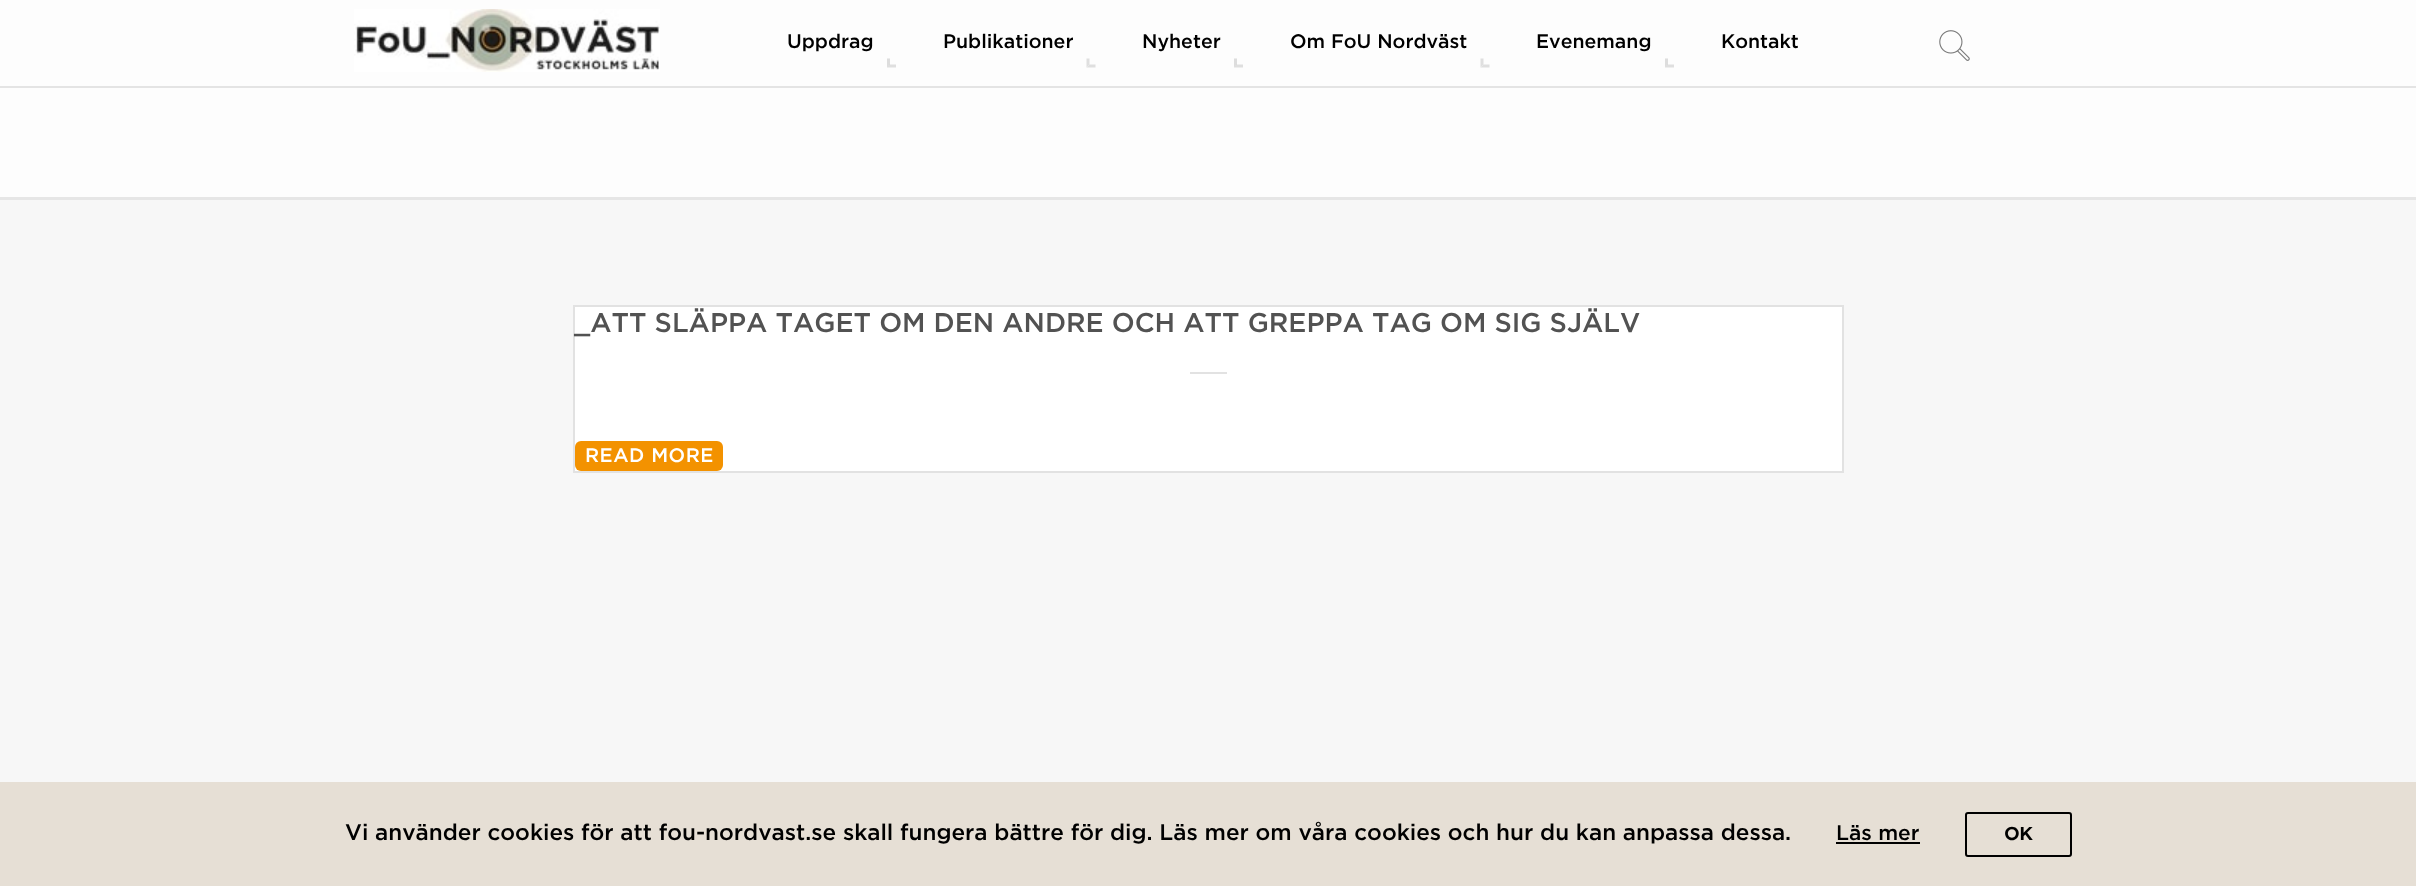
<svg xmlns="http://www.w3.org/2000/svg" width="2416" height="886">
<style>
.a{font:500 19.5px Gotham;fill:#000}
.b{font:500 27px Gotham;fill:#525252}
.c{font:500 19.5px Gotham;letter-spacing:0.5px;fill:#fff}
.d{font:500 22.5px Gotham;fill:#000}
.e{font:500 21px Gotham;fill:#000}
.f{font:bold 18px Gotham;fill:#000}
</style>
<rect width="100%" height="100%" fill="#fdfdfd"/>
<path fill="#e4e4e4" d="M0 86h2416v2H0z"/>
<image href="1.png" x="354" y="9" width="306" height="63"/>
<path fill="#dfdfdf" d="M896 67.5h-9l3-3h6z"/>
<path fill="#bebebe80" d="M887 67.5v-9h3v6z"/>
<path fill="#dfdfdf" d="M1095.5 67.5h-9l3-3h6z"/>
<path fill="#dfdfdf" d="M1086.5 67.5v-9h3v6z"/>
<path fill="#dfdfdf" d="M1243 67.5h-9l3-3h6z"/>
<path fill="#bebebe80" d="M1234 67.5v-9h3v6z"/>
<path fill="#dfdfdf" d="M1489.5 67.5h-9l3-3h6z"/>
<path fill="#dfdfdf" d="M1480.5 67.5v-9h3v6z"/>
<path fill="#dfdfdf" d="M1674 67.5h-9l3-3h6z"/>
<path fill="#bebebe80" d="M1665 67.5v-9h3v6z"/>
<image href="2.png" x="1939" y="30" width="31" height="31"/>
<path fill="#e6e6e6" d="M0 197h2416v3H0z"/>
<path fill="#f7f7f7" d="M0 200h2416v582H0z"/>
<path fill="#fff" stroke="#e2e2e2" stroke-width="2" d="M574 306h1269v166H574z"/>
<path fill="#e2e2e2" d="M1190 372h37v2H1190z"/>
<rect fill="#f39200" x="575" y="441" width="148" height="30" rx="6"/>
<path fill="#e6dfd5" d="M0 782h2416v104H0z"/>
<path fill="#000" d="M1836 842h84v2H1836z"/>
<rect fill="none" stroke="#000" stroke-width="2" x="1966" y="813" width="105" height="43" rx="2"/>
<text class="a" x="787" y="48">Uppdrag</text>
<text class="a" x="943" y="48">Publikationer</text>
<text class="a" x="1142" y="48">Nyheter</text>
<text class="a" x="1290" y="48">Om FoU Nordväst</text>
<text class="a" x="1536" y="48">Evenemang</text>
<text class="a" x="1721" y="48">Kontakt</text>
<text class="b" x="574" y="332">_ATT SLÄPPA TAGET OM DEN ANDRE OCH ATT GREPPA TAG OM SIG SJÄLV</text>
<text class="c" x="585" y="462">READ MORE</text>
<text class="d" x="345" y="840">Vi använder cookies för att fou-nordvast.se skall fungera bättre för dig. Läs mer om våra cookies och hur du kan anpassa dessa.</text>
<text class="e" x="1836" y="840">Läs mer</text>
<text class="f" x="2004" y="840">OK</text>
</svg>
